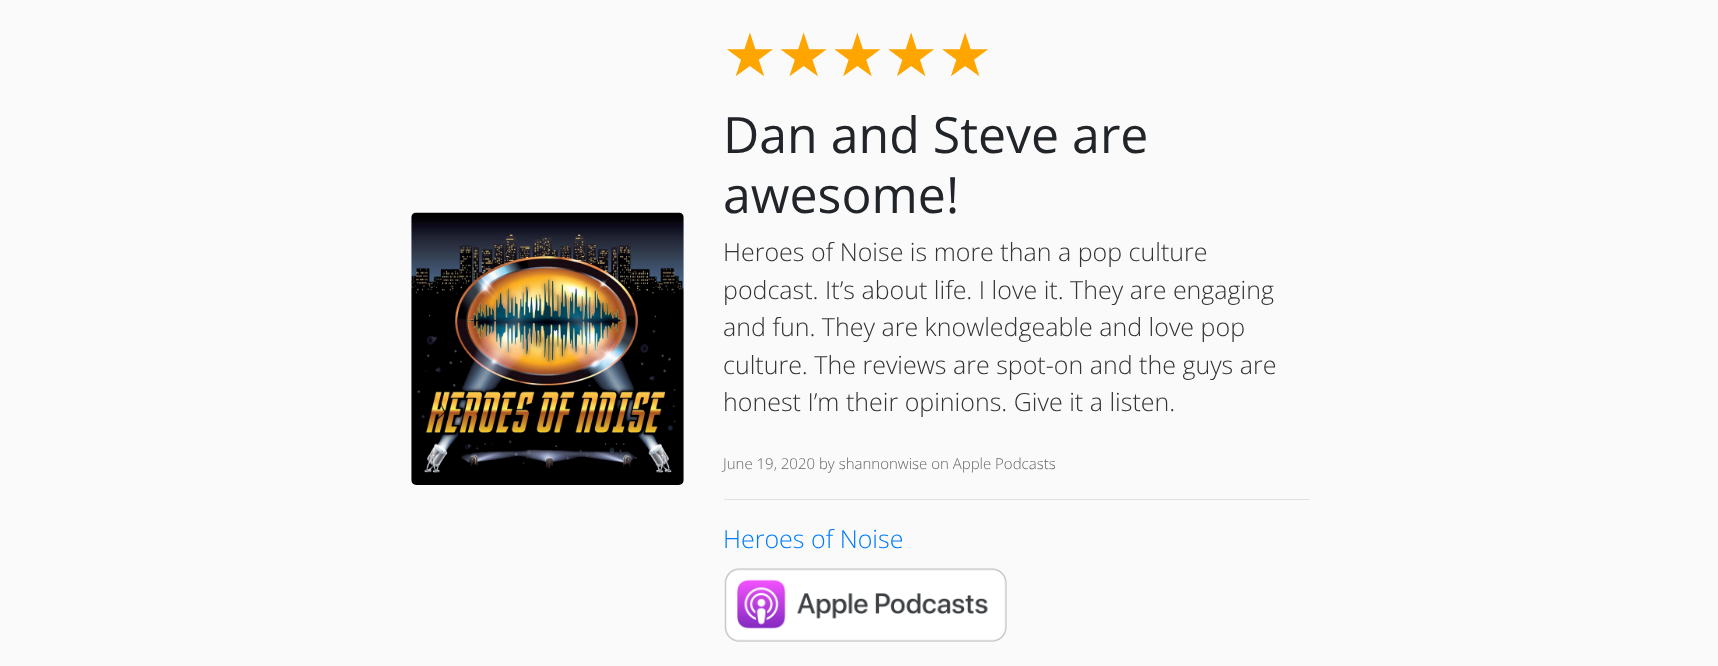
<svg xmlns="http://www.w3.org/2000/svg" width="1718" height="666">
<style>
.a{font:60px DejaVu Sans;fill:#ffa500}
.b{font:50px Open Sans;fill:#212529}
.c{font:300 25px Open Sans;fill:#333}
.d{font:300 15px Open Sans;fill:#666}
.e{font:300 25px Open Sans;fill:#007bff}
</style>
<rect width="100%" height="100%" fill="#fafafa"/>
<image href="1.png" x="411" y="212" width="273" height="273"/>
<path fill="#e1e1e1" d="M724 499h585v1H724z"/>
<image href="2.png" x="724" y="568" width="283" height="74"/>
<text class="a" x="723" y="76">★★★★★</text>
<text class="b" x="723" y="153">Dan and Steve are</text>
<text class="b" x="723" y="213">awesome!</text>
<text class="c" x="723" y="261">Heroes of Noise is more than a pop culture</text>
<text class="c" x="723" y="299">podcast. It’s about life. I love it. They are engaging</text>
<text class="c" x="723" y="336">and fun. They are knowledgeable and love pop</text>
<text class="c" x="723" y="374">culture. The reviews are spot-on and the guys are</text>
<text class="c" x="723" y="411">honest I’m their opinions. Give it a listen.</text>
<text class="d" x="723" y="469">June 19, 2020 by shannonwise on Apple Podcasts</text>
<text class="e" x="723" y="548">Heroes of Noise</text>
</svg>
